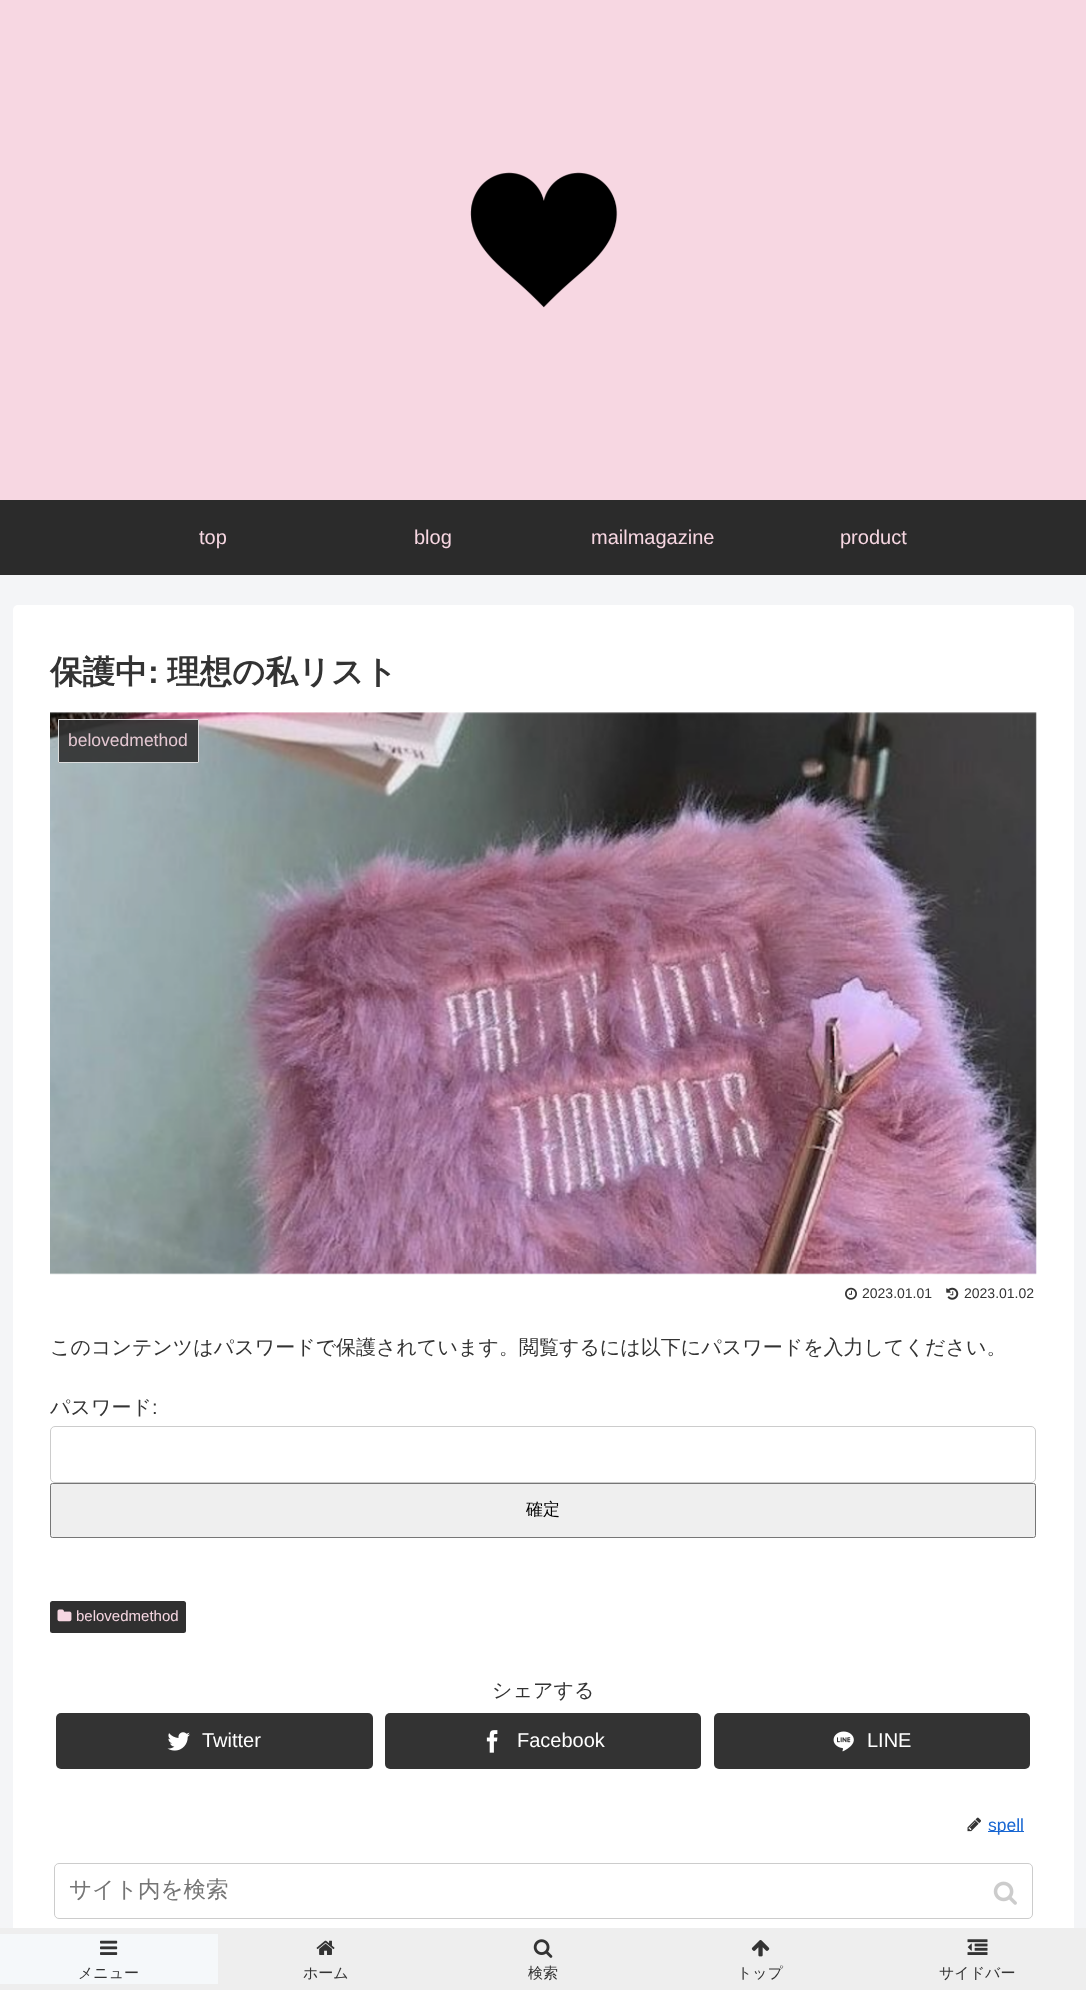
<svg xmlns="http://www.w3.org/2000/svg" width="1086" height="1990">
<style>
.a{font:20px Liberation Sans;fill:#f7d7e2}
.b{font:bold 32.5px WenQuanYi Zen Hei;fill:#333}
.c{font:bold 32.5px Liberation Sans;fill:#333}
.d{font:17.5px Liberation Sans;fill:#e4c8d2}
.e{font:14px Liberation Sans;fill:#333}
.f{font:500 20px WenQuanYi Zen Hei;fill:#333}
.g{font:20px Liberation Sans;fill:#333}
.h{font:500 17px WenQuanYi Zen Hei;fill:#000}
.i{font:15px Liberation Sans;fill:#f7d7e2}
.j{font:20px Liberation Sans;fill:#fff}
.k{font:17.5px Liberation Sans;fill:#1967d2}
.l{font:500 22.5px WenQuanYi Zen Hei;fill:#757575}
.m{font:500 15px WenQuanYi Zen Hei;fill:#333}
</style>
<rect width="100%" height="100%" fill="#f4f5f7"/>
<path fill="#f7d7e2" d="M0 0h1086v500H0z"/>
<image href="1.png" x="470" y="172" width="148" height="136"/>
<path fill="#2b2b2b" d="M0 500h1086v75H0z"/>
<rect fill="#fff" x="13" y="605" width="1061" height="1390" rx="5"/>
<image href="2.png" x="50" y="712" width="987" height="563"/>
<path fill="#303030e6" d="M58 719h141v44H58z"/>
<path fill="none" stroke="#eeeeeee6" d="M58.5 719.5h140v43H58.5z"/>
<image href="3.png" x="845" y="1287" width="12" height="13"/>
<image href="4.png" x="946" y="1287" width="13" height="13"/>
<rect fill="none" stroke="#ccc" x="50.5" y="1426.5" width="985" height="56" rx="4.5"/>
<rect fill="#efefef" stroke="#767676" x="50.5" y="1483.5" width="985" height="54" rx="2"/>
<rect fill="#303030" x="50" y="1601" width="136" height="32" rx="2.5"/>
<image href="5.png" x="57" y="1609" width="15" height="13"/>
<rect fill="#333" x="56" y="1713" width="317" height="56" rx="5"/>
<image href="6.png" x="167" y="1732" width="23" height="19"/>
<rect fill="#333" x="385" y="1713" width="316" height="56" rx="5"/>
<image href="7.png" x="486" y="1730" width="12" height="23"/>
<rect fill="#333" x="714" y="1713" width="316" height="56" rx="5"/>
<image href="8.png" x="833" y="1731" width="21" height="21"/>
<image href="9.png" x="967" y="1817" width="14" height="15"/>
<path fill="#1967d2" d="M988 1831h36v1H988z"/>
<path fill="#eee" d="M0 1928h1086v62H0z"/>
<rect fill="none" stroke="#ccc" x="54.5" y="1863.5" width="978" height="55" rx="4.5"/>
<image href="10.png" x="993" y="1881" width="24" height="24"/>
<image href="11.png" x="533" y="1939" width="20" height="19"/>
<image href="12.png" x="751" y="1940" width="19" height="17"/>
<image href="13.png" x="967" y="1939" width="21" height="16"/>
<path fill="#f5f8fa" d="M0 1934h218v50H0z"/>
<image href="14.png" x="100" y="1940" width="18" height="15"/>
<image href="15.png" x="316" y="1940" width="19" height="15"/>
<text class="a" x="199" y="544">top</text>
<text class="a" x="414" y="544">blog</text>
<text class="a" x="591" y="544">mailmagazine</text>
<text class="a" x="840" y="544">product</text>
<text class="b" x="50" y="683">保護中</text>
<text class="c" x="148" y="683">:</text>
<text class="b" x="167" y="683">理想の私リスト</text>
<text class="d" x="68" y="746">belovedmethod</text>
<text class="e" x="862" y="1298">2023.01.01</text>
<text class="e" x="964" y="1298">2023.01.02</text>
<text class="f" x="50" y="1354">このコンテンツはパスワードで保護されています。閲覧するには以下にパスワードを入力してください。</text>
<text class="f" x="50" y="1414">パスワード</text>
<text class="g" x="152" y="1414">:</text>
<text class="h" x="526" y="1515">確定</text>
<text class="i" x="76" y="1621">belovedmethod</text>
<text class="f" x="492" y="1697">シェアする</text>
<text class="j" x="202" y="1747">Twitter</text>
<text class="j" x="517" y="1747">Facebook</text>
<text class="j" x="867" y="1747">LINE</text>
<text class="k" x="988" y="1831">spell</text>
<text class="l" x="69" y="1897">サイト内を検索</text>
<text class="m" x="528" y="1978">検索</text>
<text class="m" x="737" y="1978">トップ</text>
<text class="m" x="939" y="1978">サイドバー</text>
<text class="m" x="78" y="1978">メニュー</text>
<text class="m" x="303" y="1978">ホーム</text>
</svg>
